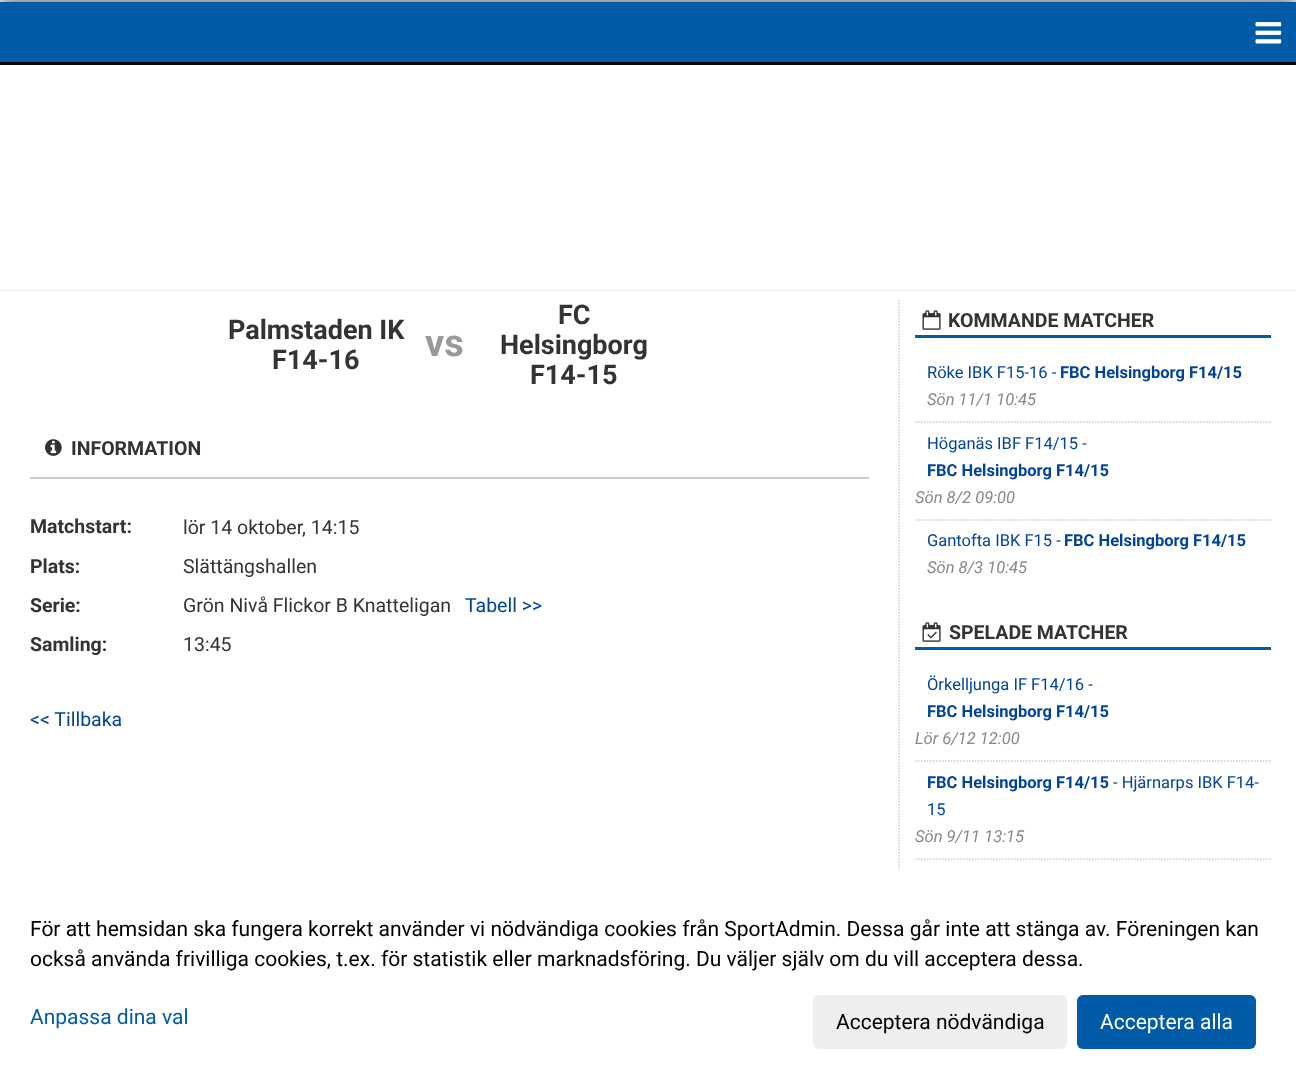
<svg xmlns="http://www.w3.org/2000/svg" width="1296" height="1078">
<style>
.a{font:bold 27px Roboto;fill:#333}
.b{font:bold 38px Roboto;fill:#999}
.c{font:bold 19.5px Roboto;fill:#333}
.d{font:19.5px Roboto;fill:#333}
.e{font:19.5px Roboto;fill:#049}
.f{font:16.5px Roboto;fill:#049}
.g{font:bold 16.5px Roboto;fill:#049}
.h{font:italic 16.5px Roboto;fill:#888}
.i{font:21px Roboto;fill:#000}
.j{font:21px Roboto;fill:#005ca8}
.k{font:21px Roboto;fill:#fff}
</style>
<defs>
<clipPath id="clip1"><path d="M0 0h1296v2H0z"/></clipPath>
</defs>
<rect width="100%" height="100%" fill="#fff"/>
<g clip-path="url(#clip1)">
<path fill="#333" filter="blur(7.5px)" d="M0 2h1296v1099H0z"/>
</g>
<path fill="#005ca8" d="M0 2h1296v60H0z"/>
<path fill="#080808" d="M0 62h1296v3H0z"/>
<image href="1.png" x="1255" y="22" width="27" height="22"/>
<path fill="#eee" d="M0 290h1296v1H0z"/>
<path fill="#ccc" d="M30 477h839v2H30z"/>
<image href="2.png" x="45" y="439" width="17" height="17"/>
<path fill="none" stroke="#ccc" stroke-width="1.5" stroke-dasharray="1.5 1.5" d="M899 300v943.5"/>
<path fill="#005ca8" d="M915 335h356v3H915z"/>
<image href="3.png" x="922" y="310" width="19" height="20"/>
<path fill="none" stroke="#ccc" stroke-width="1.5" stroke-dasharray="1.5 1.5" d="M915 422h355.5"/>
<path fill="none" stroke="#ccc" stroke-width="1.5" stroke-dasharray="1.5 1.5" d="M915 520h355.5"/>
<path fill="#005ca8" d="M915 647h356v3H915z"/>
<image href="4.png" x="922" y="622" width="19" height="20"/>
<path fill="none" stroke="#ccc" stroke-width="1.5" stroke-dasharray="1.5 1.5" d="M915 761h355.5"/>
<path fill="none" stroke="#ccc" stroke-width="1.5" stroke-dasharray="1.5 1.5" d="M915 859h355.5"/>
<path fill="#fff" d="M898 870h2v208H898z"/>
<rect fill="#eee" x="813" y="995" width="254" height="54" rx="6"/>
<rect fill="#005ca8" x="1077" y="995" width="179" height="54" rx="6"/>
<text class="a" x="228" y="339">Palmstaden IK</text>
<text class="a" x="272" y="369">F14-16</text>
<text class="b" x="425" y="356">vs</text>
<text class="a" x="558" y="324">FC</text>
<text class="a" x="500" y="354">Helsingborg</text>
<text class="a" x="530" y="384">F14-15</text>
<text class="c" x="71" y="455">INFORMATION</text>
<text class="c" x="30" y="533">Matchstart:</text>
<text class="d" x="183" y="534">lör 14 oktober, 14:15</text>
<text class="c" x="30" y="573">Plats:</text>
<text class="d" x="183" y="573">Slättängshallen</text>
<text class="c" x="30" y="612">Serie:</text>
<text class="d" x="183" y="612">Grön Nivå Flickor B Knatteligan</text>
<text class="e" x="465" y="612">Tabell &gt;&gt;</text>
<text class="c" x="30" y="651">Samling:</text>
<text class="d" x="183" y="651">13:45</text>
<text class="e" x="30" y="726">&lt;&lt; Tillbaka</text>
<text class="c" x="948" y="327">KOMMANDE MATCHER</text>
<text class="f" x="927" y="378">Röke IBK F15-16 -</text>
<text class="g" x="1060" y="378">FBC Helsingborg F14/15</text>
<text class="h" x="927" y="405">Sön 11/1 10:45</text>
<text class="f" x="927" y="449">Höganäs IBF F14/15 -</text>
<text class="g" x="927" y="476">FBC Helsingborg F14/15</text>
<text class="h" x="915" y="503">Sön 8/2 09:00</text>
<text class="f" x="927" y="546">Gantofta IBK F15 -</text>
<text class="g" x="1064" y="546">FBC Helsingborg F14/15</text>
<text class="h" x="927" y="573">Sön 8/3 10:45</text>
<text class="c" x="949" y="639">SPELADE MATCHER</text>
<text class="f" x="927" y="690">Örkelljunga IF F14/16 -</text>
<text class="g" x="927" y="717">FBC Helsingborg F14/15</text>
<text class="h" x="915" y="744">Lör 6/12 12:00</text>
<text class="g" x="927" y="788">FBC Helsingborg F14/15</text>
<text class="f" x="1113" y="788">- Hjärnarps IBK F14-</text>
<text class="f" x="927" y="815">15</text>
<text class="h" x="915" y="842">Sön 9/11 13:15</text>
<text class="i" x="30" y="936">För att hemsidan ska fungera korrekt använder vi nödvändiga cookies från SportAdmin. Dessa går inte att stänga av. Föreningen kan</text>
<text class="i" x="30" y="966">också använda frivilliga cookies, t.ex. för statistik eller marknadsföring. Du väljer själv om du vill acceptera dessa.</text>
<text class="j" x="30" y="1024">Anpassa dina val</text>
<text class="i" x="836" y="1029">Acceptera nödvändiga</text>
<text class="k" x="1100" y="1029">Acceptera alla</text>
</svg>
